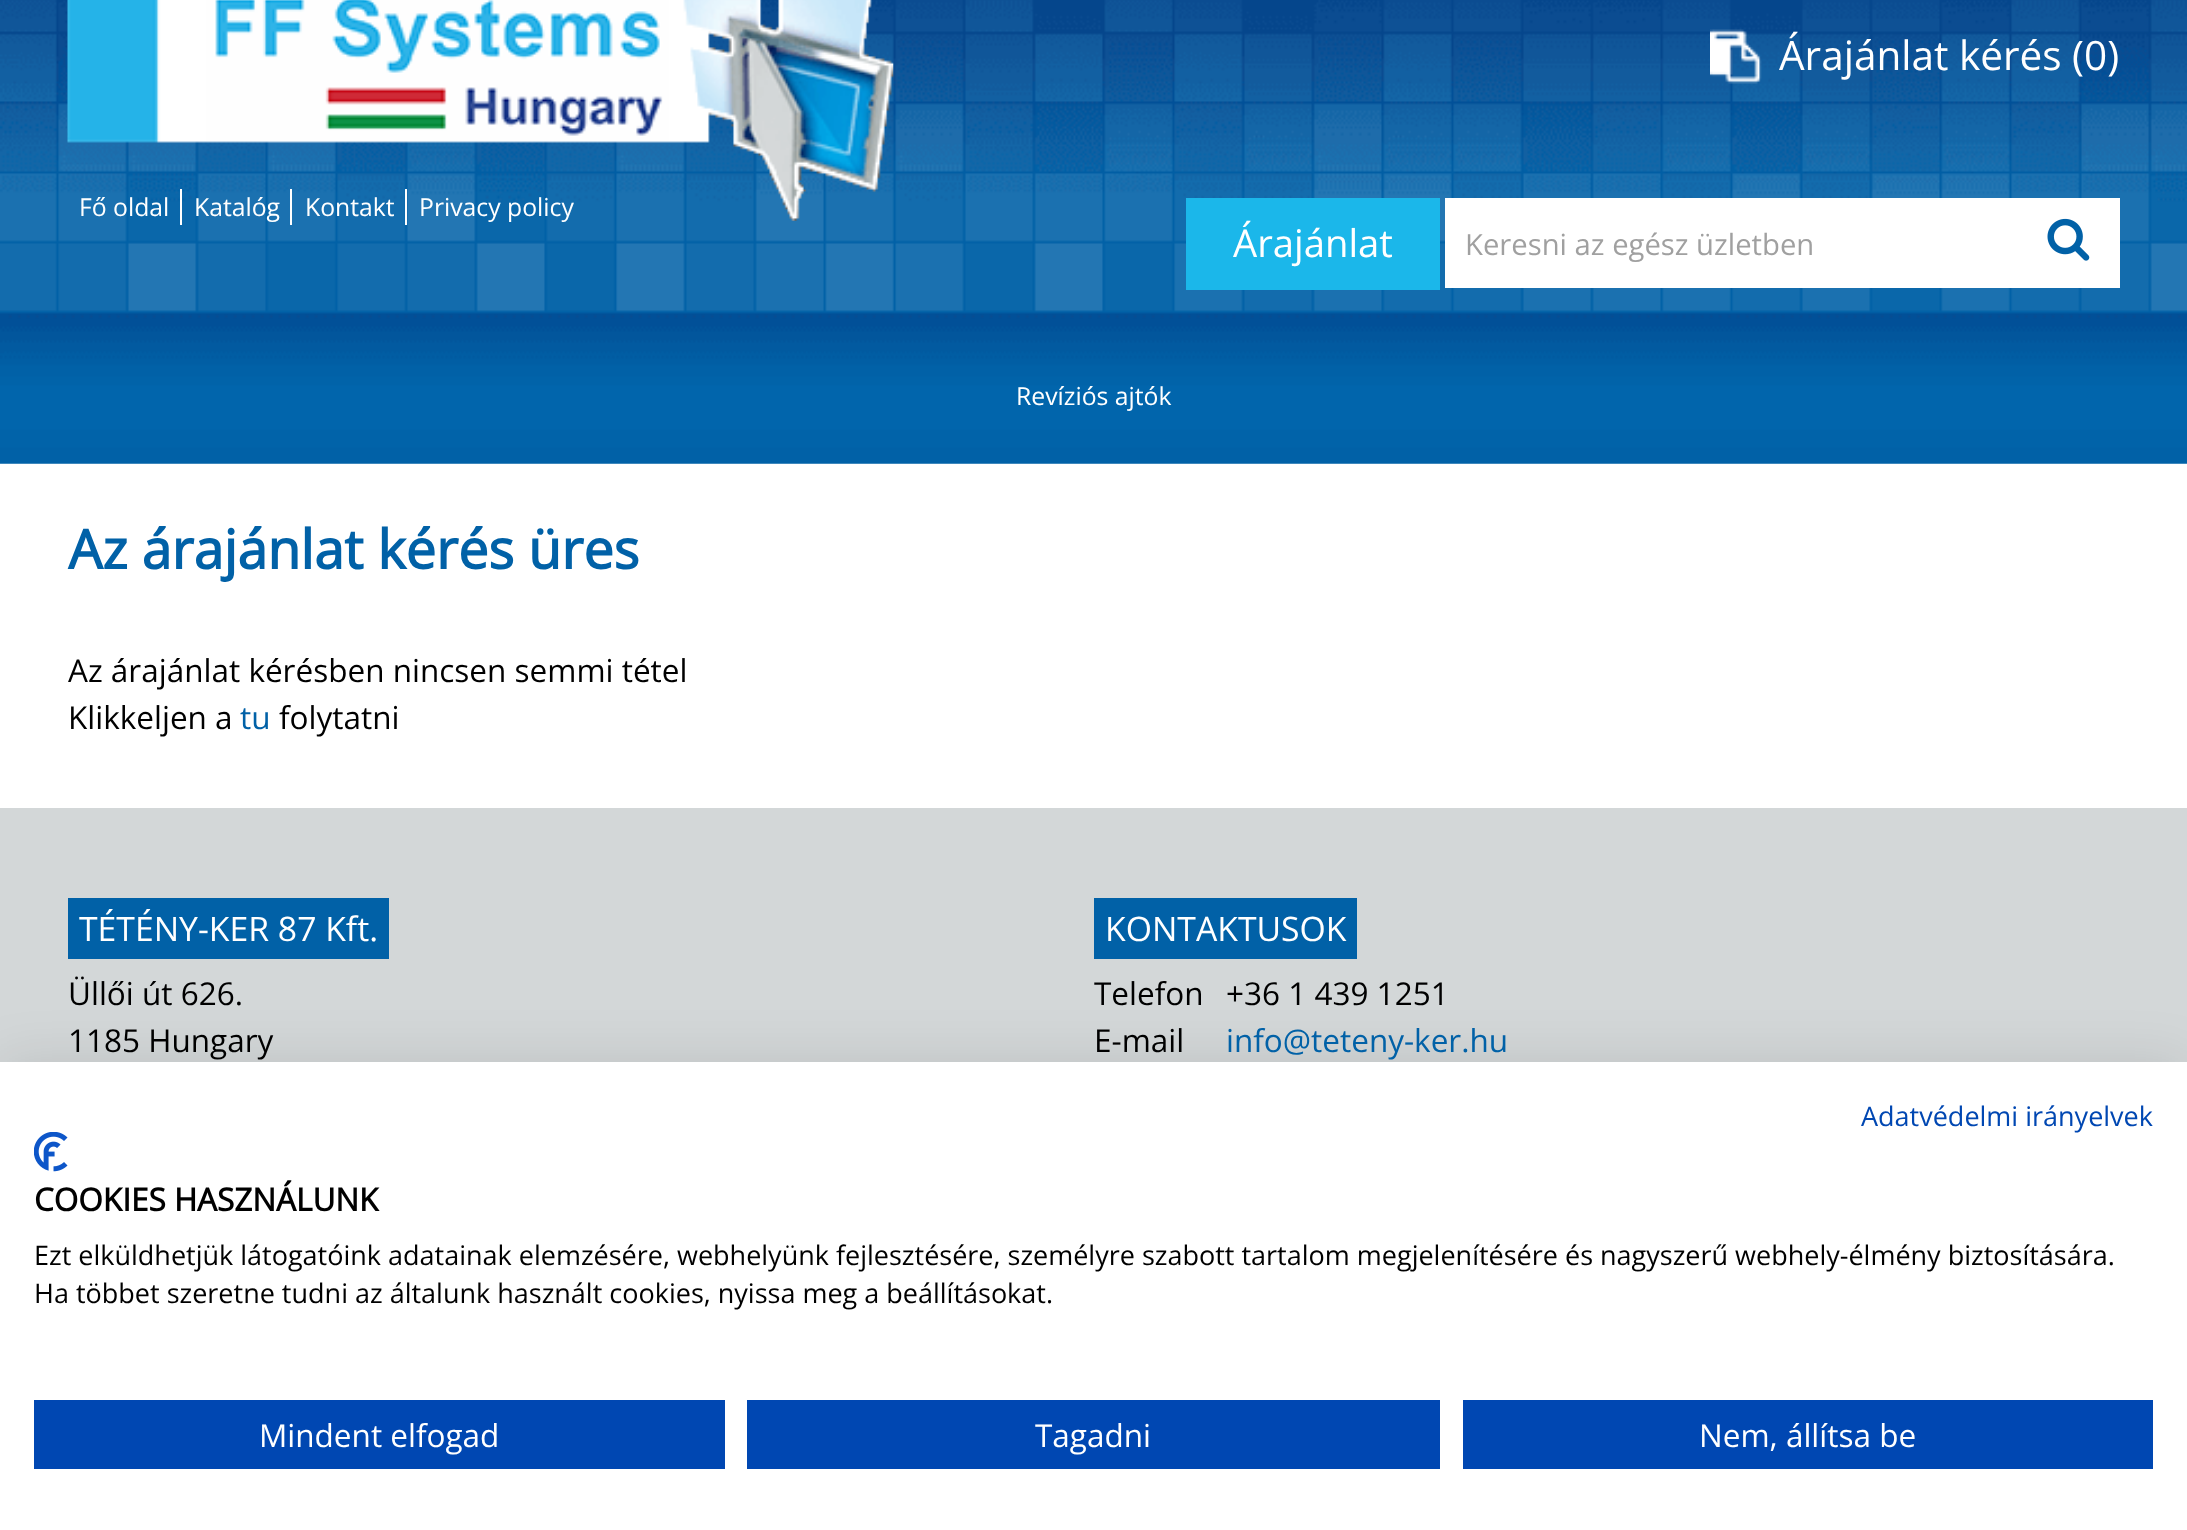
<svg xmlns="http://www.w3.org/2000/svg" width="2187" height="1530">
<style>
.a{font:40.5px Open Sans;fill:#fff}
.b{font:24.75px Open Sans;fill:#fff}
.c{font:38.25px Open Sans;fill:#fff}
.d{font:29.25px Open Sans;fill:#a0a0a0}
.e{font:bold 54px Open Sans;fill:#0161a7}
.f{font:31.5px Open Sans;fill:#000}
.g{font:31.5px Open Sans;fill:#0161a7}
.h{font:33.75px Open Sans;fill:#fff}
.i{font:27px Open Sans;fill:#0047b2}
.j{font:bold 31.5px Open Sans;fill:#000}
.k{font:27px Open Sans;fill:#000}
.l{font:31.5px Open Sans;fill:#fff}
</style>
<rect width="100%" height="100%" fill="#fff"/>
<image href="1.png" x="0" y="0" width="2187" height="464"/>
<image href="2.png" x="67" y="0" width="827" height="221"/>
<image href="3.png" x="1710" y="29" width="52" height="55"/>
<path fill="#fff" d="M180 189h2v36H180z"/>
<path fill="#fff" d="M290 189h2v36H290z"/>
<path fill="#fff" d="M405 189h2v36H405z"/>
<path fill="#1bb7ea" d="M1186 198h254v92H1186z"/>
<path fill="#fff" d="M1445 198h675v90H1445z"/>
<image href="4.png" x="2047" y="218" width="43" height="43"/>
<path fill="#d3d7d8" d="M0 808h2187v254H0z"/>
<path fill="#0161a7" d="M68 898h321v61H68z"/>
<path fill="#0161a7" d="M1094 898h263v61H1094z"/>
<path fill="#0000001a" filter="blur(27px)" d="M0 1062h2187v468H0z"/>
<path fill="#fff" d="M0 1062h2187v468H0z"/>
<image href="5.png" x="34" y="1132" width="34" height="40"/>
<path fill="#0047b2" d="M34 1400h691v69H34z"/>
<path fill="#0047b2" d="M747 1400h693v69H747z"/>
<path fill="#0047b2" d="M1463 1400h690v69H1463z"/>
<text class="a" x="1779" y="70">Árajánlat kérés (0)</text>
<text class="b" x="79" y="216">Fő oldal</text>
<text class="b" x="194" y="216">Katalóg</text>
<text class="b" x="305" y="216">Kontakt</text>
<text class="b" x="419" y="216">Privacy policy</text>
<text class="c" x="1233" y="257">Árajánlat</text>
<text class="d" x="1465" y="255">Keresni az egész üzletben</text>
<text class="b" x="1016" y="405">Revíziós ajtók</text>
<text class="e" x="68" y="569">Az árajánlat kérés üres</text>
<text class="f" x="68" y="682">Az árajánlat kérésben nincsen semmi tétel</text>
<text class="f" x="68" y="729">Klikkeljen a</text>
<text class="g" x="240" y="729">tu</text>
<text class="f" x="279" y="729">folytatni</text>
<text class="h" x="79" y="941">TÉTÉNY-KER 87 Kft.</text>
<text class="f" x="68" y="1005">Üllői út 626.</text>
<text class="f" x="68" y="1052">1185 Hungary</text>
<text class="h" x="1105" y="941">KONTAKTUSOK</text>
<text class="f" x="1094" y="1005">Telefon</text>
<text class="f" x="1226" y="1005">+36 1 439 1251</text>
<text class="f" x="1094" y="1052">E-mail</text>
<text class="g" x="1226" y="1052">info@teteny-ker.hu</text>
<text class="i" x="1861" y="1126">Adatvédelmi irányelvek</text>
<text class="j" x="34" y="1211">COOKIES HASZNÁLUNK</text>
<text class="k" x="34" y="1265">Ezt elküldhetjük látogatóink adatainak elemzésére, webhelyünk fejlesztésére, személyre szabott tartalom megjelenítésére és nagyszerű webhely-élmény biztosítására.</text>
<text class="k" x="34" y="1303">Ha többet szeretne tudni az általunk használt cookies, nyissa meg a beállításokat.</text>
<text class="l" x="259" y="1447">Mindent elfogad</text>
<text class="l" x="1035" y="1447">Tagadni</text>
<text class="l" x="1699" y="1447">Nem, állítsa be</text>
</svg>
